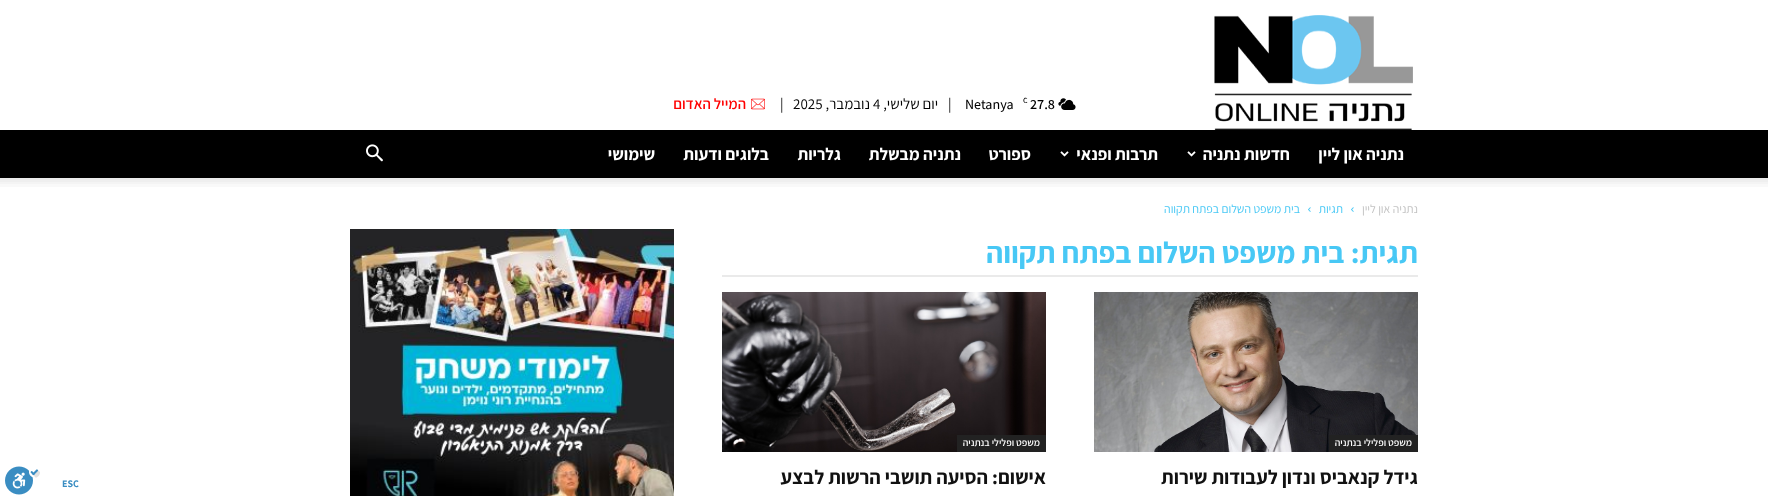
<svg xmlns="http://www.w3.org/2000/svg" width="1768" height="496">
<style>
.a{font:600 14px Assistant;fill:#000}
.b{font:600 8px Assistant;fill:#000}
.c{font:500 14px Assistant;fill:#000}
.d{font:15px Assistant;fill:#000}
.e{font:15px Assistant;direction:rtl;fill:#000}
.f{font:600 15px Assistant;direction:rtl;fill:#f00}
.g{font:bold 17px Assistant;direction:rtl;fill:#fff}
.h{font:12px Assistant;direction:rtl;fill:#c3c3c3}
.i{font:12px Assistant;direction:rtl;fill:#48c8f5}
.j{font:bold 30px Assistant;direction:rtl;fill:#48c8f5}
.k{font:600 10px Assistant;direction:rtl;fill:#fff}
.l{font:bold 20px Assistant;direction:rtl;fill:#111}
.m{font:bold 10px Assistant;fill:#3a8dc2}
</style>
<rect width="100%" height="100%" fill="#fff"/>
<image href="1.png" x="1214" y="15" width="199" height="115"/>
<image href="2.png" x="1058" y="98" width="18" height="12"/>
<image href="3.png" x="751" y="98" width="14" height="12"/>
<path fill="#000" d="M0 130h1768v48H0z"/>
<image href="4.png" x="1187" y="151" width="9" height="6"/>
<image href="4.png" x="1060" y="151" width="9" height="6"/>
<image href="5.png" x="366" y="144" width="17" height="18"/>
<image href="6.png" x="0" y="178" width="1768" height="9"/>
<image href="7.png" x="1351" y="207" width="3" height="5"/>
<image href="7.png" x="1308" y="207" width="3" height="5"/>
<path fill="#eaeaea" d="M722 275h696v2H722z"/>
<image href="8.png" x="1094" y="292" width="324" height="160"/>
<path fill="#222" d="M1329 435h89v17H1329z"/>
<image href="9.png" x="722" y="292" width="324" height="160"/>
<path fill="#222" d="M957 435h89v17H957z"/>
<image href="10.png" x="350" y="229" width="324" height="267"/>
<image href="11.png" x="5" y="466" width="35" height="29"/>
<text class="a" x="1030" y="109">27.8</text>
<text class="b" x="1023" y="103">C</text>
<text class="c" x="965" y="109">Netanya</text>
<text class="d" x="948" y="109">|</text>
<text class="e" x="938" y="109">יום שלישי,</text>
<text class="d" x="873" y="109">4</text>
<text class="e" x="870" y="109">נובמבר,</text>
<text class="d" x="793" y="109">2025</text>
<text class="d" x="780" y="109">|</text>
<text class="f" x="746" y="109">המייל האדום</text>
<text class="g" x="1404" y="160">נתניה און ליין</text>
<text class="g" x="1290" y="160">חדשות נתניה</text>
<text class="g" x="1158" y="160">תרבות ופנאי</text>
<text class="g" x="1031" y="160">ספורט</text>
<text class="g" x="961" y="160">נתניה מבשלת</text>
<text class="g" x="841" y="160">גלריות</text>
<text class="g" x="769" y="160">בלוגים ודעות</text>
<text class="g" x="655" y="160">שימושי</text>
<text class="h" x="1418" y="213">נתניה און ליין</text>
<text class="i" x="1343" y="213">תגיות</text>
<text class="i" x="1300" y="213">בית משפט השלום בפתח תקווה</text>
<text class="j" x="1418" y="263">תגית: בית משפט השלום בפתח תקווה</text>
<text class="k" x="1412" y="446">משפט ופלילי בנתניה</text>
<text class="l" x="1418" y="484">גידל קנאביס ונדון לעבודות שירות</text>
<text class="k" x="1040" y="446">משפט ופלילי בנתניה</text>
<text class="l" x="1046" y="484">אישום:</text>
<text class="l" x="988" y="484">הסיעה תושבי הרשות לבצע</text>
<text class="m" x="62" y="487">ESC</text>
</svg>
